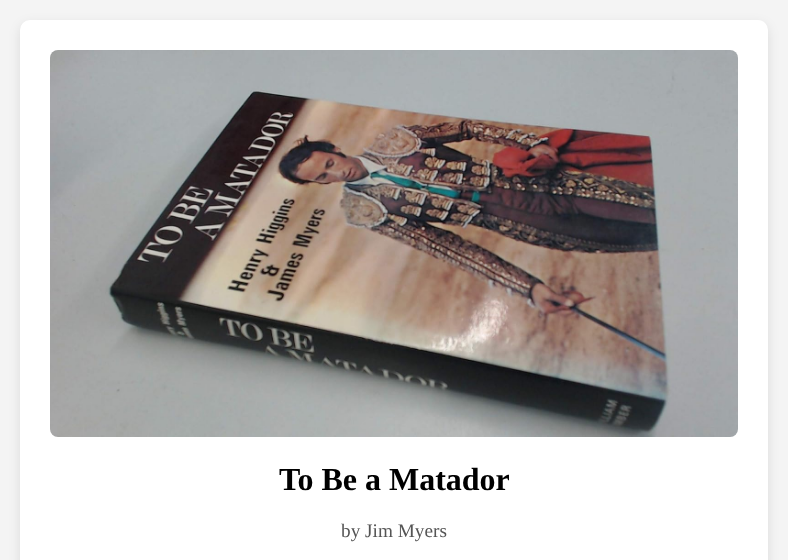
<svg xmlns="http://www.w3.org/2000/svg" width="788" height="560">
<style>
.a{font:bold 32px Liberation Serif;fill:#000}
.b{font:19.25px Liberation Serif;fill:#555}
</style>
<rect width="100%" height="100%" fill="#f4f4f4"/>
<rect fill="#0000001a" filter="blur(6px)" x="20" y="24" width="748" height="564" rx="10"/>
<rect fill="#fff" x="20" y="20" width="748" height="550" rx="10"/>
<image href="1.png" x="50" y="50" width="688" height="387"/>
<text class="a" x="279" y="490">To Be a Matador</text>
<text class="b" x="341" y="537">by Jim Myers</text>
</svg>
